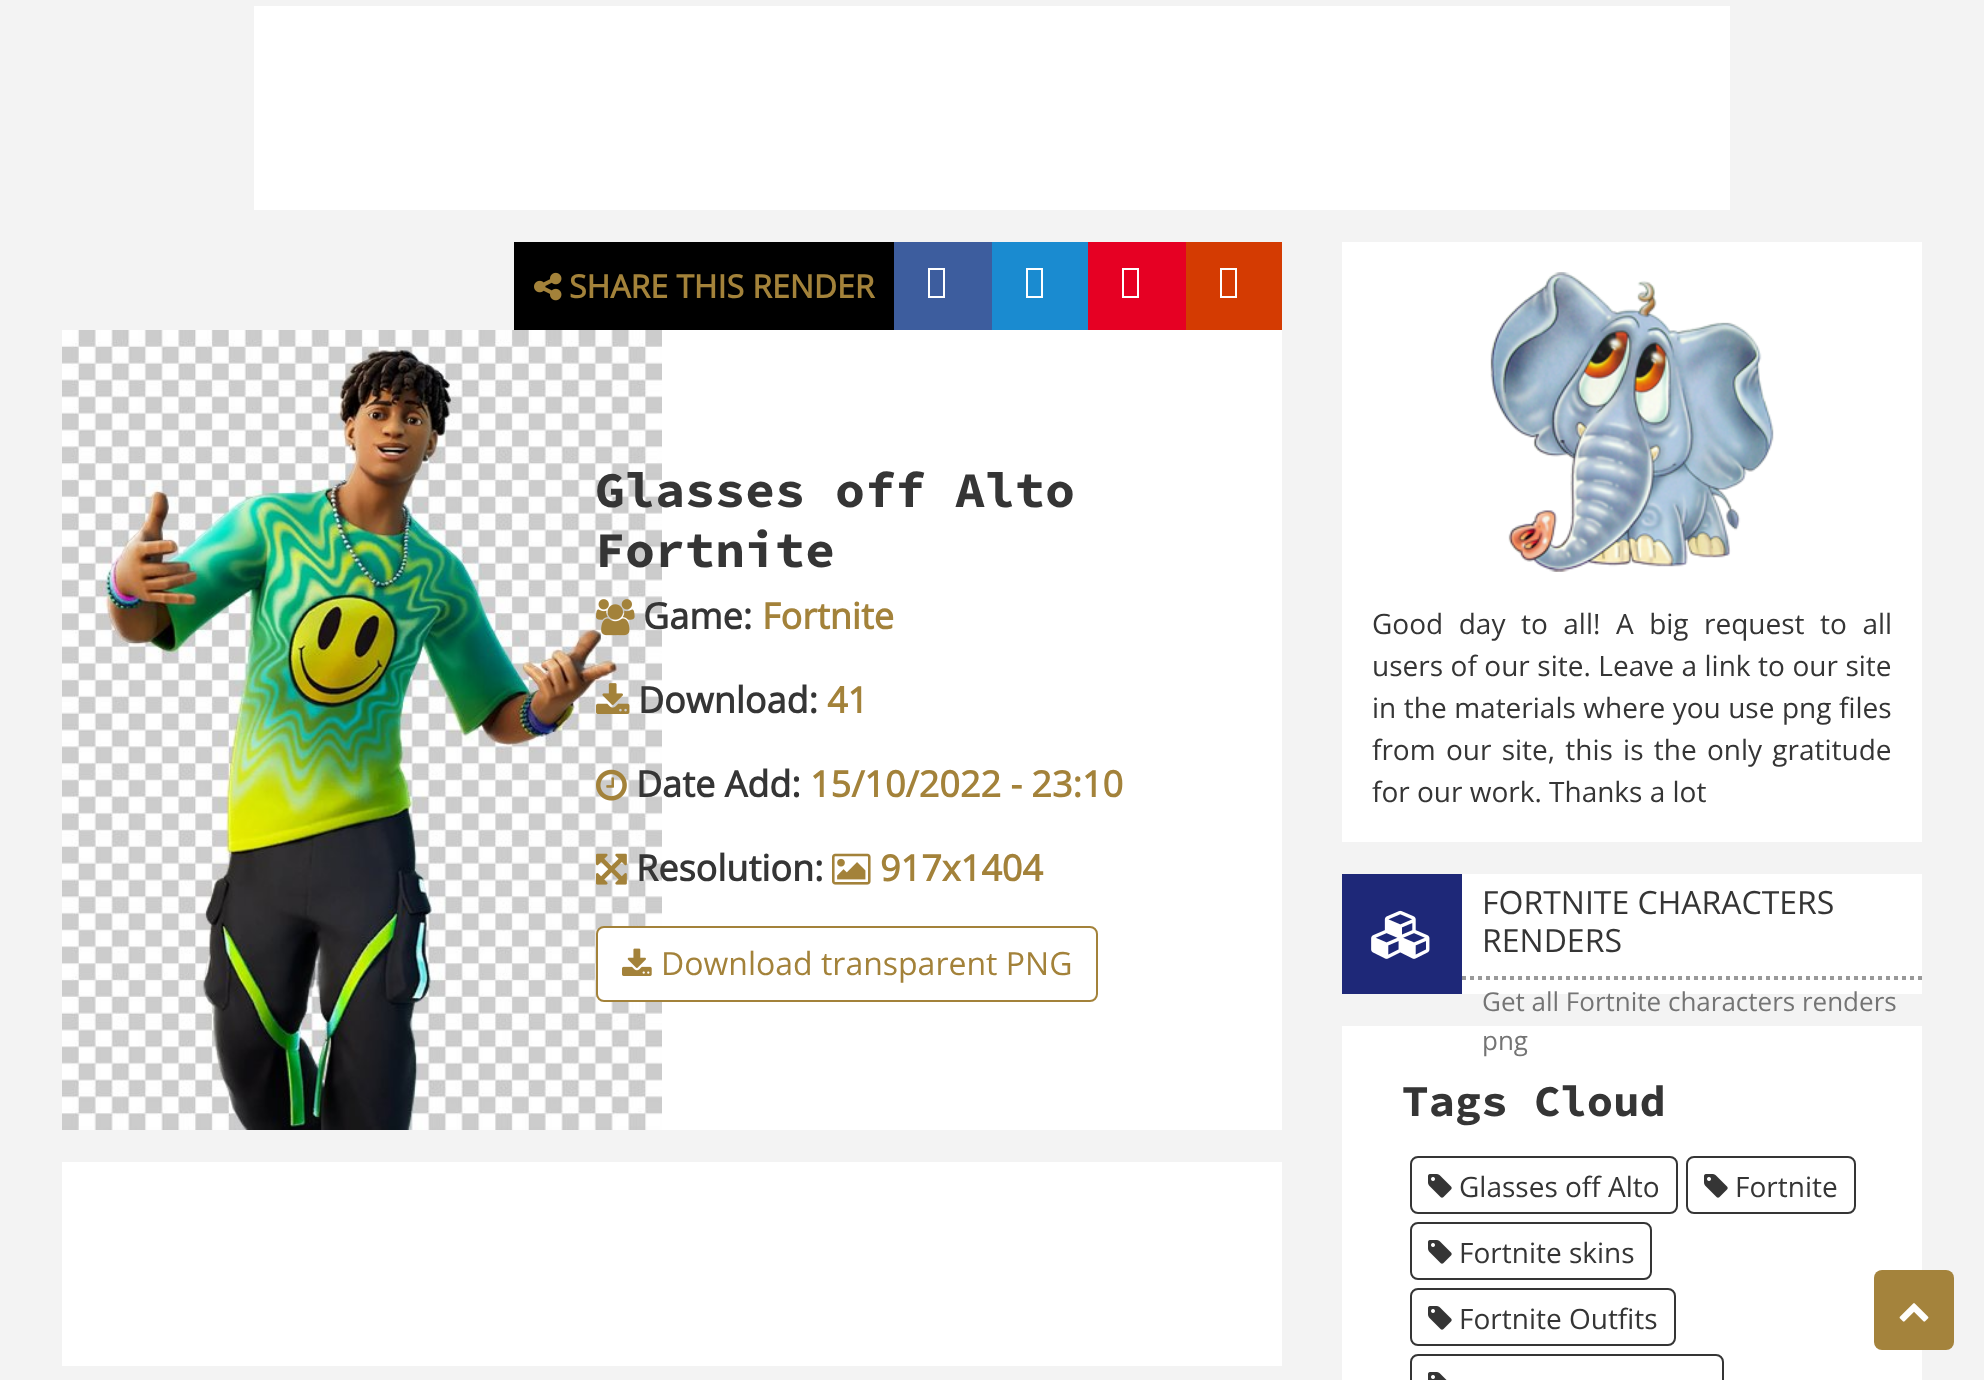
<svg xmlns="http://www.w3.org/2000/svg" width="1984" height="1380">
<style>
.a{font:bold 32px Open Sans;fill:#a3823a}
.b{font:bold 50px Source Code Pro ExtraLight;fill:#353535}
.c{font:bold 36px Open Sans;fill:#353535}
.d{font:bold 36px Open Sans;fill:#a3823a}
.e{font:32px Open Sans;fill:#a3823a}
.f{font:28px Open Sans;fill:#353535}
.g{font:32px Open Sans;fill:#353535}
.h{font:26px Open Sans;fill:#747474}
.i{font:bold 44px Source Code Pro ExtraLight;fill:#353535}
</style>
<rect width="100%" height="100%" fill="#f3f3f3"/>
<path fill="#fff" d="M254 6h1476v204H254z"/>
<path fill="#000" d="M514 242h380v88H514z"/>
<image href="1.png" x="534" y="272" width="28" height="29"/>
<path fill="#3d5d9e" d="M894 242h98v88H894z"/>
<path fill="#fff" d="M928 298v-30h17v30zm2-2h13v-26h-13z"/>
<path fill="#1a8bd0" d="M992 242h96v88H992z"/>
<path fill="#fff" d="M1026 298v-30h17v30zm2-2h13v-26h-13z"/>
<path fill="#e60023" d="M1088 242h98v88H1088z"/>
<path fill="#fff" d="M1122 298v-30h17v30zm2-2h13v-26h-13z"/>
<path fill="#d43b02" d="M1186 242h96v88H1186z"/>
<path fill="#fff" d="M1220 298v-30h17v30zm2-2h13v-26h-13z"/>
<path fill="#fff" d="M662 330h620v800H662z"/>
<image href="2.png" x="62" y="330" width="600" height="800"/>
<image href="3.png" x="596" y="599" width="39" height="37"/>
<image href="4.png" x="596" y="683" width="34" height="31"/>
<image href="5.png" x="596" y="769" width="31" height="32"/>
<image href="6.png" x="596" y="853" width="31" height="32"/>
<image href="7.png" x="832" y="853" width="39" height="32"/>
<rect fill="#fff" stroke="#a3823a" stroke-width="2" x="597" y="927" width="500" height="74" rx="7"/>
<image href="8.png" x="622" y="948" width="30" height="28"/>
<path fill="#fff" d="M62 1162h1220v204H62z"/>
<path fill="#fff" d="M1342 242h580v600H1342z"/>
<image href="9.png" x="1490" y="272" width="284" height="300"/>
<path fill="#fff" d="M1462 874h460v120H1462z"/>
<path fill="none" stroke="#999" stroke-width="4" stroke-dasharray="4 4" d="M1342 978h580"/>
<path fill="#1e2878" d="M1342 874h120v120H1342z"/>
<image href="10.png" x="1371" y="910" width="59" height="49"/>
<path fill="#fff" d="M1342 1026h580v354H1342z"/>
<rect fill="none" stroke="#353535" stroke-width="2" x="1411" y="1157" width="266" height="56" rx="7"/>
<image href="11.png" x="1428" y="1174" width="24" height="24"/>
<rect fill="none" stroke="#353535" stroke-width="2" x="1687" y="1157" width="168" height="56" rx="7"/>
<image href="11.png" x="1704" y="1174" width="24" height="24"/>
<rect fill="none" stroke="#353535" stroke-width="2" x="1411" y="1223" width="240" height="56" rx="7"/>
<image href="11.png" x="1428" y="1240" width="24" height="24"/>
<rect fill="none" stroke="#353535" stroke-width="2" x="1411" y="1289" width="264" height="56" rx="7"/>
<image href="11.png" x="1428" y="1306" width="24" height="24"/>
<rect fill="none" stroke="#353535" stroke-width="2" x="1411" y="1355" width="312" height="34" rx="7"/>
<image href="12.png" x="1428" y="1372" width="19" height="8"/>
<rect fill="#a3823afc" x="1874" y="1270" width="80" height="80" rx="8"/>
<image href="13.png" x="1899" y="1303" width="30" height="19"/>
<text class="a" x="569" y="298">SHARE THIS RENDER</text>
<text class="b" x="595" y="507">Glasses off Alto</text>
<text class="b" x="595" y="567">Fortnite</text>
<text class="c" x="643" y="629">Game:</text>
<text class="d" x="762" y="629">Fortnite</text>
<text class="c" x="638" y="713">Download:</text>
<text class="d" x="827" y="713">41</text>
<text class="c" x="636" y="797">Date Add:</text>
<text class="d" x="810" y="797">15/10/2022 - 23:10</text>
<text class="c" x="636" y="881">Resolution:</text>
<text class="d" x="880" y="881">917x1404</text>
<text class="e" x="661" y="975">Download transparent PNG</text>
<text class="f" x="1372" y="634" word-spacing="8.25">Good day to all! A big request to all</text>
<text class="f" x="1372" y="676" word-spacing="0.25">users of our site. Leave a link to our site</text>
<text class="f" x="1372" y="718" word-spacing="0.25">in the materials where you use png files</text>
<text class="f" x="1372" y="760" word-spacing="3">from our site, this is the only gratitude</text>
<text class="f" x="1372" y="802">for our work. Thanks a lot</text>
<text class="g" x="1482" y="914">FORTNITE CHARACTERS</text>
<text class="g" x="1482" y="952">RENDERS</text>
<text class="h" x="1482" y="1011">Get all Fortnite characters renders</text>
<text class="h" x="1482" y="1050">png</text>
<text class="i" x="1402" y="1116">Tags Cloud</text>
<text class="f" x="1459" y="1197">Glasses off Alto</text>
<text class="f" x="1735" y="1197">Fortnite</text>
<text class="f" x="1459" y="1263">Fortnite skins</text>
<text class="f" x="1459" y="1329">Fortnite Outfits</text>
</svg>
